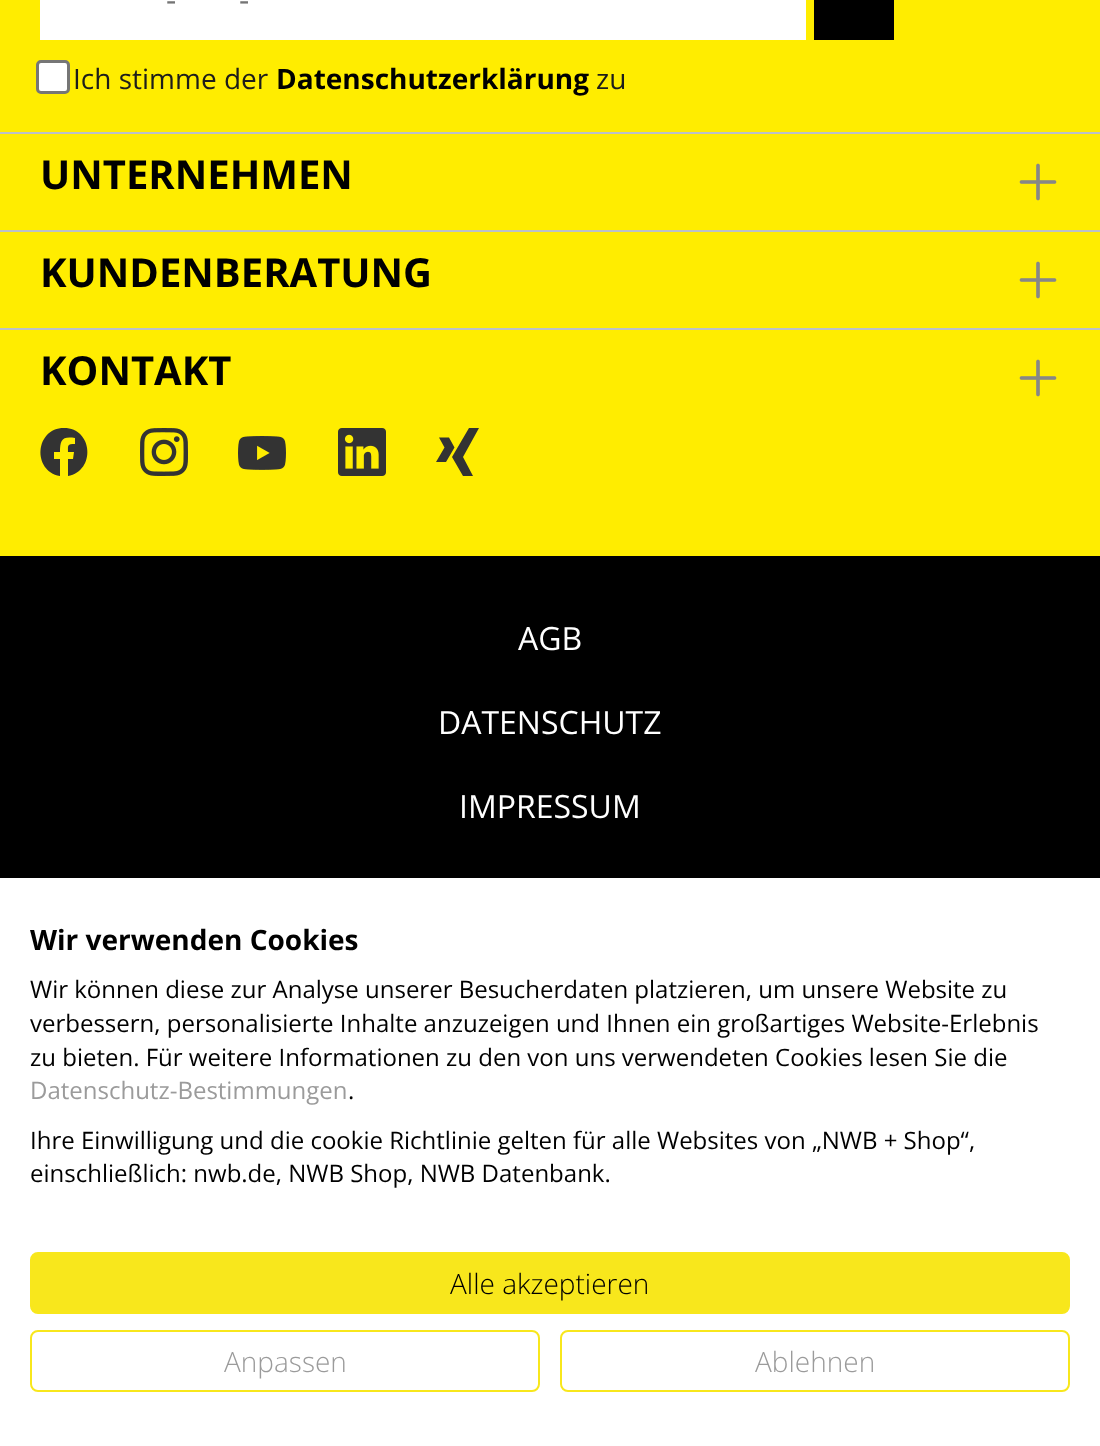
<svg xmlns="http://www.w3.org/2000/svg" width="1100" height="1446">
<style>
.a{font:32px Open Sans;fill:#757575}
.b{font:28px Open Sans;fill:#1d1d1b}
.c{font:bold 28px Open Sans;fill:#000}
.d{font:bold 40px Open Sans;fill:#000}
.e{font:32px Open Sans;fill:#fff}
.f{font:24px Open Sans;fill:#000}
.g{font:24px Open Sans;fill:#9b9b9b}
.h{font:300 28px Open Sans;fill:#000}
.i{font:300 28px Open Sans;fill:#9b9b9b}
</style>
<rect width="100%" height="100%" fill="#ffed00"/>
<path fill="#bcc1c7" d="M0 132h1100v2H0z"/>
<path fill="#fff" d="M40 0h766v40H40z"/>
<path fill="#000" d="M814 0h80v40H814z"/>
<rect fill="#fff" stroke="#767676" stroke-width="3" x="37.5" y="61.5" width="31" height="31" rx="3.5"/>
<path fill="#bcc1c7" d="M0 230h1100v2H0z"/>
<image href="1.png" x="1019" y="163" width="38" height="38"/>
<path fill="#bcc1c7" d="M0 328h1100v2H0z"/>
<image href="1.png" x="1019" y="261" width="38" height="38"/>
<image href="1.png" x="1019" y="359" width="38" height="38"/>
<path fill="#333" d="M64 428c-29 0-32 43-4 48v-17h-6v-7h6c0-12 2-16 15-14v6c-8 0-7 1-7 8h6l-1 7h-5v17c28-5 25-48-4-48z"/>
<image href="2.png" x="140" y="428" width="48" height="48"/>
<image href="3.png" x="238" y="436" width="48" height="34"/>
<image href="4.png" x="338" y="428" width="48" height="48"/>
<path fill="#333" fill-rule="evenodd" d="M449 437.5h-10l5.5 10l-8.5 14.5h10l8.5-14.5z"/>
<path fill="#333" fill-rule="evenodd" d="M479 428h-10l-17 29l11 19h10l-10-19z"/>
<path fill="#000" d="M0 556h1100v322H0z"/>
<path fill="#fff" d="M0 878h1100v568H0z"/>
<rect fill="#f8e71c" stroke="#f8e71c" stroke-width="2" x="31" y="1253" width="1038" height="60" rx="7"/>
<rect fill="none" stroke="#f8e71c" stroke-width="2" x="31" y="1331" width="508" height="60" rx="7"/>
<rect fill="none" stroke="#f8e71c" stroke-width="2" x="561" y="1331" width="508" height="60" rx="7"/>
<text class="a" x="166" y="11">-</text>
<text class="a" x="239" y="11">-</text>
<text class="b" x="73" y="89">Ich stimme der</text>
<text class="c" x="276" y="89">Datenschutzerklärung</text>
<text class="b" x="596" y="89">zu</text>
<text class="d" x="40" y="189">UNTERNEHMEN</text>
<text class="d" x="40" y="287">KUNDENBERATUNG</text>
<text class="d" x="40" y="385">KONTAKT</text>
<text class="e" x="518" y="650">AGB</text>
<text class="e" x="438" y="734">DATENSCHUTZ</text>
<text class="e" x="459" y="818">IMPRESSUM</text>
<text class="c" x="30" y="950">Wir verwenden Cookies</text>
<text class="f" x="30" y="998">Wir können diese zur Analyse unserer Besucherdaten platzieren, um unsere Website zu</text>
<text class="f" x="30" y="1032">verbessern, personalisierte Inhalte anzuzeigen und Ihnen ein großartiges Website-Erlebnis</text>
<text class="f" x="30" y="1066">zu bieten. Für weitere Informationen zu den von uns verwendeten Cookies lesen Sie die</text>
<text class="g" x="30" y="1099">Datenschutz-Bestimmungen</text>
<text class="f" x="348" y="1099">.</text>
<text class="f" x="30" y="1149">Ihre Einwilligung und die cookie Richtlinie gelten für alle Websites von „NWB + Shop“,</text>
<text class="f" x="30" y="1182">einschließlich: nwb.de, NWB Shop, NWB Datenbank.</text>
<text class="h" x="450" y="1294">Alle akzeptieren</text>
<text class="i" x="224" y="1372">Anpassen</text>
<text class="i" x="755" y="1372">Ablehnen</text>
</svg>
